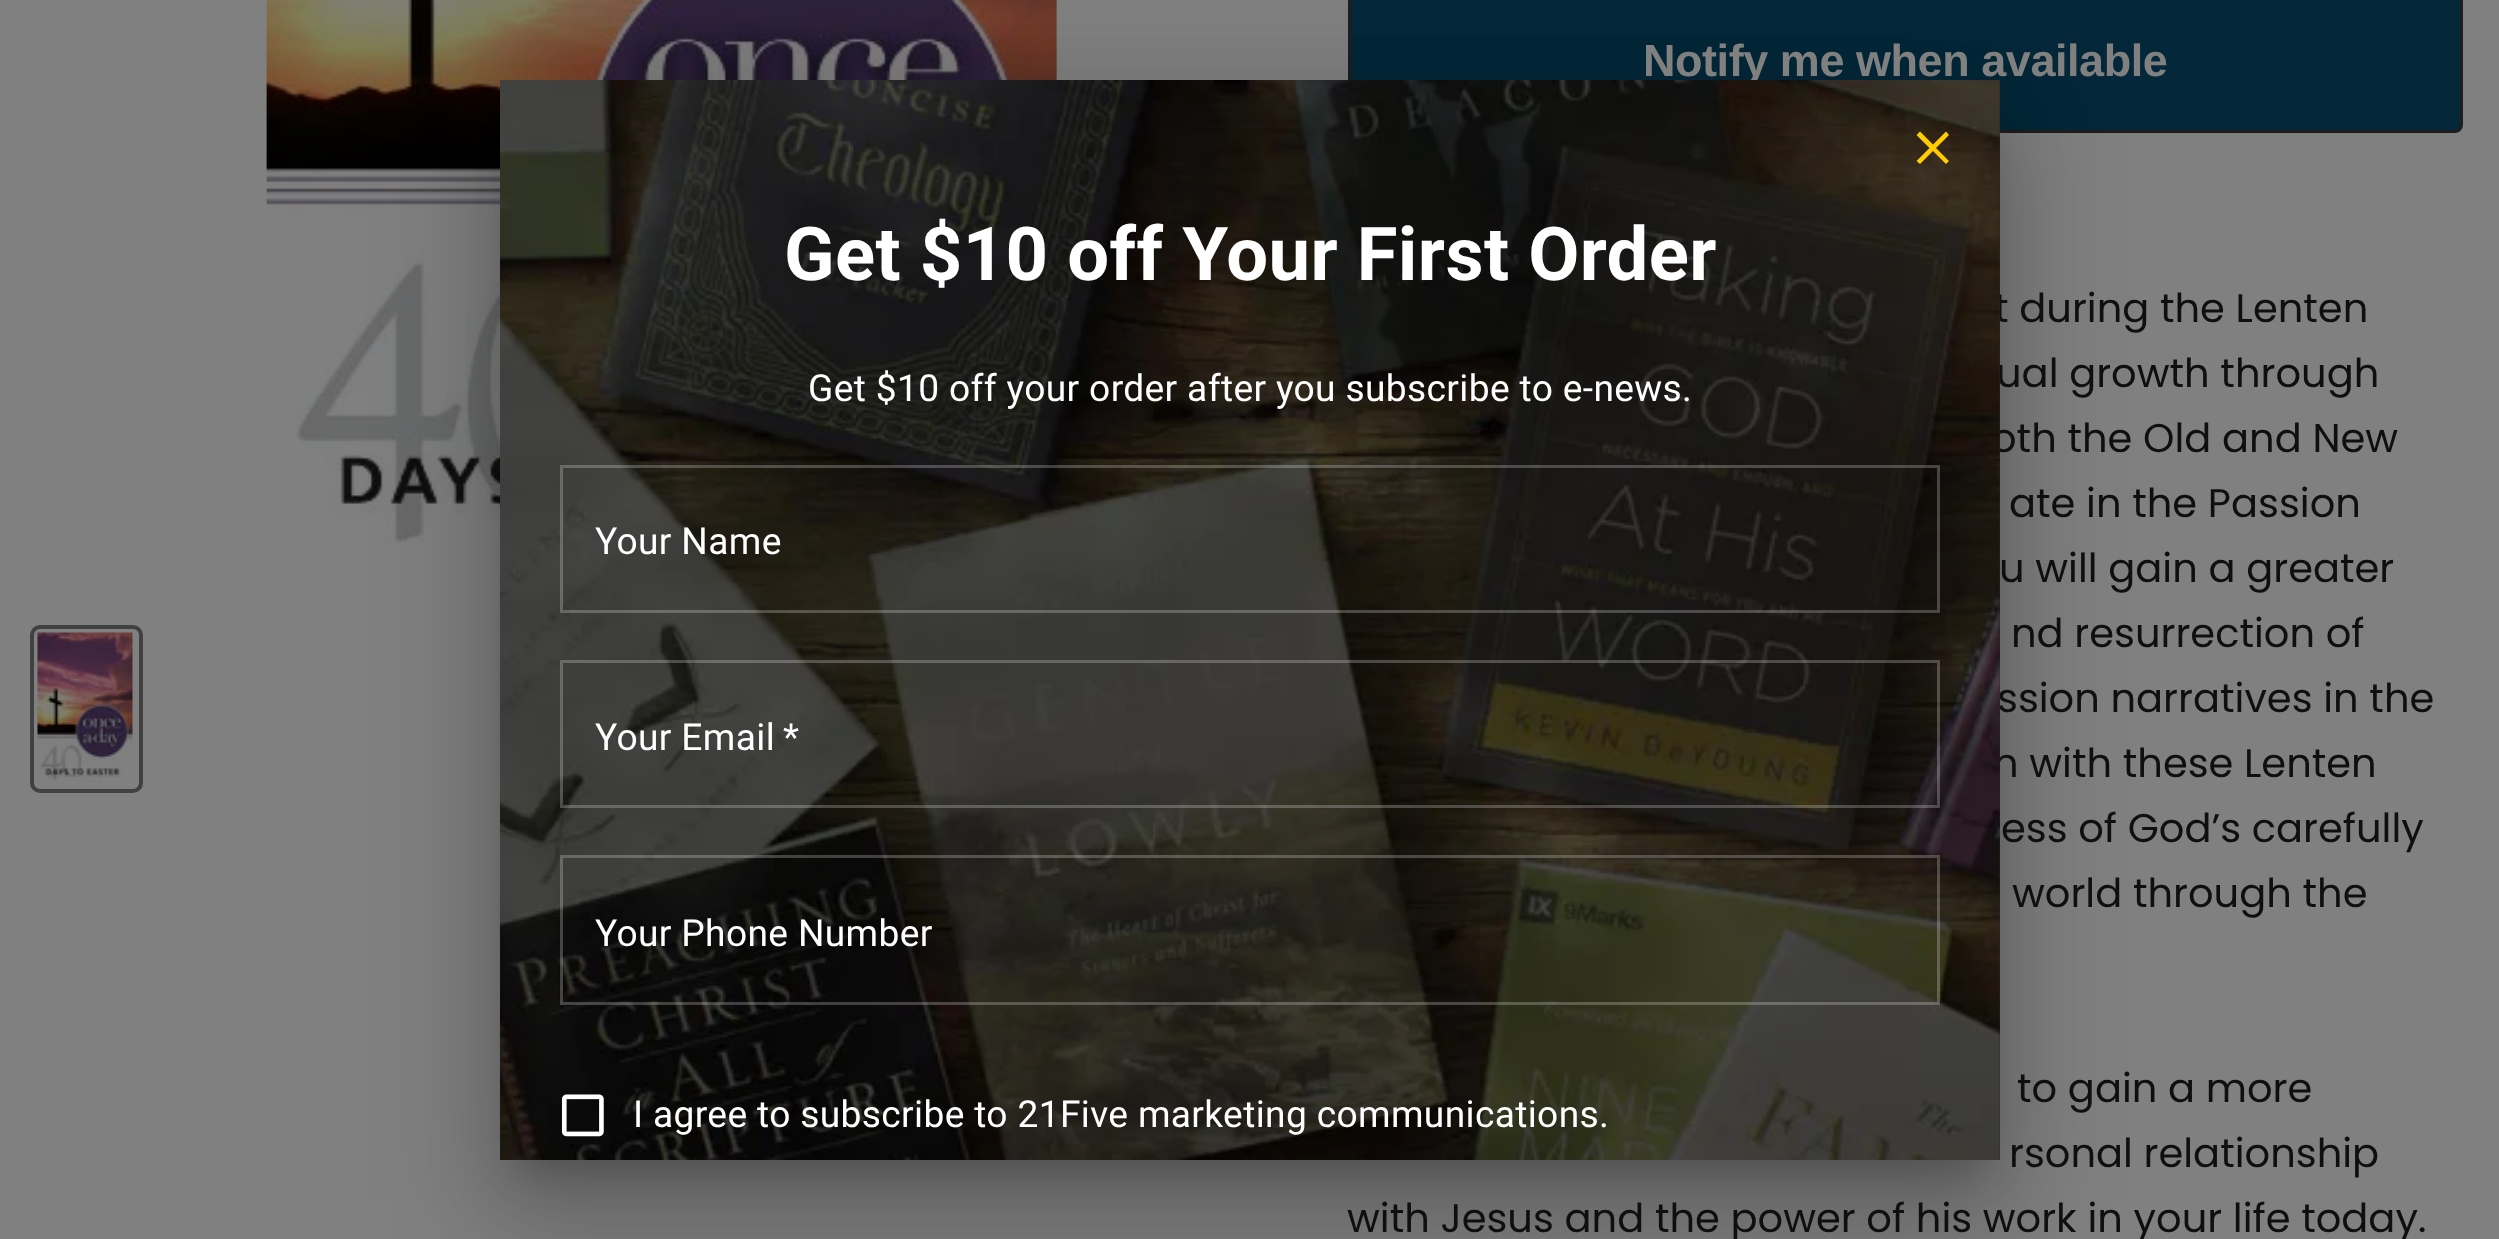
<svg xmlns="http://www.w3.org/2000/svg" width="2499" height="1239">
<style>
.a{font:bold 45px Liberation Sans;letter-spacing:-0.45px;fill:#808080}
.b{font:40px Poppins;fill:#0f0f0f}
.c{font:37.15px Roboto;letter-spacing:0.35px;fill:#fff}
.d{font:bold 74.25px Roboto;letter-spacing:0.35px;fill:#fff}
</style>
<rect width="100%" height="100%" fill="#808080"/>
<image href="3.png" x="266" y="0" width="791" height="544"/>
<rect fill="#042839" stroke="#1e1e1e" stroke-width="3" x="1349.5" y="-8.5" width="1112" height="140" rx="6.5"/>
<path fill="#0000001f" filter="blur(57.5px)" d="M480 83h1540v1120H480z"/>
<path fill="#00000024" filter="blur(47.5px)" d="M493 133h1515v1095H493z"/>
<path fill="#00000033" filter="blur(19px)" d="M518 125h1465v1045H518z"/>
<rect fill="none" stroke="#414141" stroke-width="4" x="32" y="627" width="109" height="164" rx="8"/>
<image href="4.png" x="37" y="632" width="96" height="149"/>
<text class="a" x="1643" y="76">Notify me when available</text>
<text class="b" x="1994" y="322">t during the Lenten</text>
<text class="b" x="1996" y="387">ual growth through</text>
<text class="b" x="1991" y="452">oth the Old and New</text>
<text class="b" x="2009" y="517">ate in the Passion</text>
<text class="b" x="1999" y="582">u will gain a greater</text>
<text class="b" x="2011" y="647">nd resurrection of</text>
<text class="b" x="1997" y="712">ssion narratives in the</text>
<text class="b" x="1993" y="777">n with these Lenten</text>
<path fill="#292929" d="M1999 80h1v1080H1999z"/>
<image href="1.png" x="500" y="80" width="1500" height="1080"/>
<path fill="none" stroke="#ffffff3b" stroke-width="3" d="M561.5 856.5h1377v147H561.5z"/>
<text class="c" x="595" y="946">Your Phone Number</text>
<path fill="none" stroke="#ffffff3b" stroke-width="3" d="M561.5 661.5h1377v145H561.5z"/>
<text class="c" x="783" y="750">*</text>
<text class="c" x="595" y="750">Your Email</text>
<path fill="none" stroke="#ffffff3b" stroke-width="3" d="M561.5 466.5h1377v145H561.5z"/>
<text class="c" x="595" y="554">Your Name</text>
<image href="2.png" x="561" y="1094" width="43" height="43"/>
<text class="c" x="633" y="1127">I agree to subscribe to 21Five marketing communications.</text>
<path fill="#ffcd01" d="M1949 135l-3-3.5l-13 13l-13-13l-3.5 3.5l13 13l-13 13l3.5 3l13-13l13 13l3-3l-13-13z"/>
<text class="c" x="808" y="401">Get $10 off your order after you subscribe to e-news.</text>
<text class="d" x="784" y="280">Get $10 off Your First Order</text>
<text class="b" x="2001" y="842">ess of God’s carefully</text>
<text class="b" x="2012" y="907">world through the</text>
<text class="b" x="2017" y="1102">to gain a more</text>
<text class="b" x="2009" y="1167">rsonal relationship</text>
<text class="b" x="1347" y="1232">with Jesus and the power of his work in your life today.</text>
</svg>
